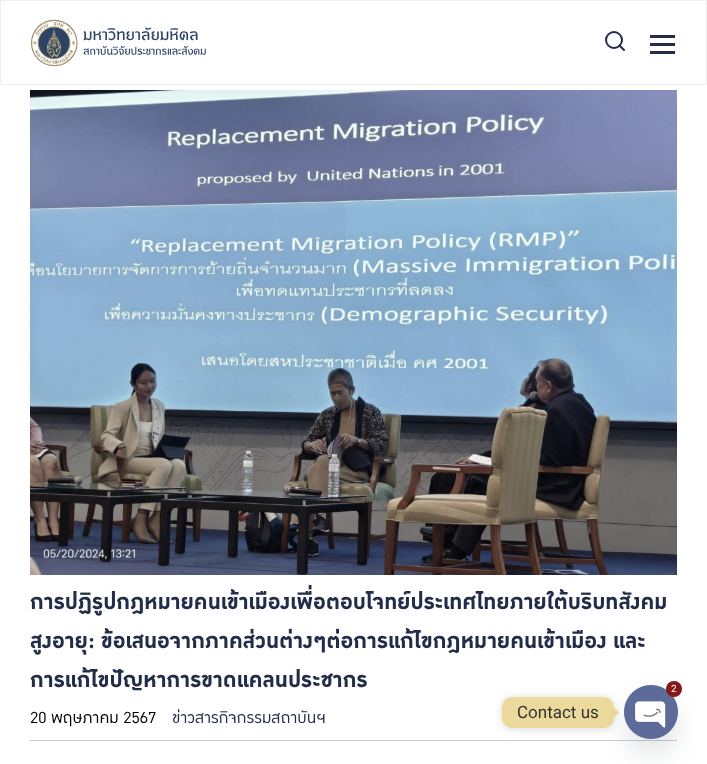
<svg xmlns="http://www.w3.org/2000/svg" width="707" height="764">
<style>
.a{font:bold 30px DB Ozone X;fill:#232c49}
.b{font:22px DB Ozone X;fill:#000}
.c{font:22px DB Ozone X;fill:#232c49}
.d{font:10px Roboto;fill:#fff}
.e{font:17px Roboto;fill:#333}
</style>
<rect width="100%" height="100%" fill="#fff"/>
<path fill="none" stroke="#f0f0f0" d="M0.5 0.5h706v84H0.5z"/>
<image href="1.png" x="31" y="19" width="175" height="48"/>
<circle fill="none" stroke="#232c49" stroke-width="2" cx="614" cy="40" r="8"/>
<path fill="none" stroke="#232c49" stroke-width="2" stroke-linecap="round" stroke-linejoin="round" d="M624 50l-4.5-4.5"/>
<path fill="#232c49" d="M650 43h25v3H650z"/>
<path fill="#232c49" d="M650 35h25v3H650z"/>
<path fill="#232c49" d="M650 51h25v3H650z"/>
<path fill="#cacaca" d="M30 740h647v1H30z"/>
<image href="2.png" x="30" y="90" width="647" height="485"/>
<rect fill="#00000026" filter="blur(4px)" x="502" y="698" width="112" height="31" rx="10"/>
<rect fill="#ecda9c" x="502" y="697" width="112" height="31" rx="10"/>
<path fill="#ecda9c" d="M614 717.5v-10l5 5z"/>
<rect fill="#56657029" filter="blur(12px)" x="624" y="701" width="54" height="54" rx="27"/>
<image href="3.png" x="624" y="685" width="54" height="54"/>
<circle fill="#861717" cx="674" cy="689" r="8"/>
<text class="a" x="30" y="609">การปฏิรูปกฎหมายคนเข้าเมืองเพื่อตอบโจทย์ประเทศไทยภายใต้บริบทสังคม</text>
<text class="a" x="30" y="648">สูงอายุ: ข้อเสนอจากภาคส่วนต่างๆต่อการแก้ไขกฎหมายคนเข้าเมือง และ</text>
<text class="a" x="30" y="687">การแก้ไขปัญหาการขาดแคลนประชากร</text>
<text class="b" x="30" y="723">20 พฤษภาคม 2567</text>
<text class="c" x="172" y="723">ข่าวสารกิจกรรมสถาบันฯ</text>
<text class="d" x="671" y="692">2</text>
<text class="e" x="517" y="718">Contact us</text>
</svg>
